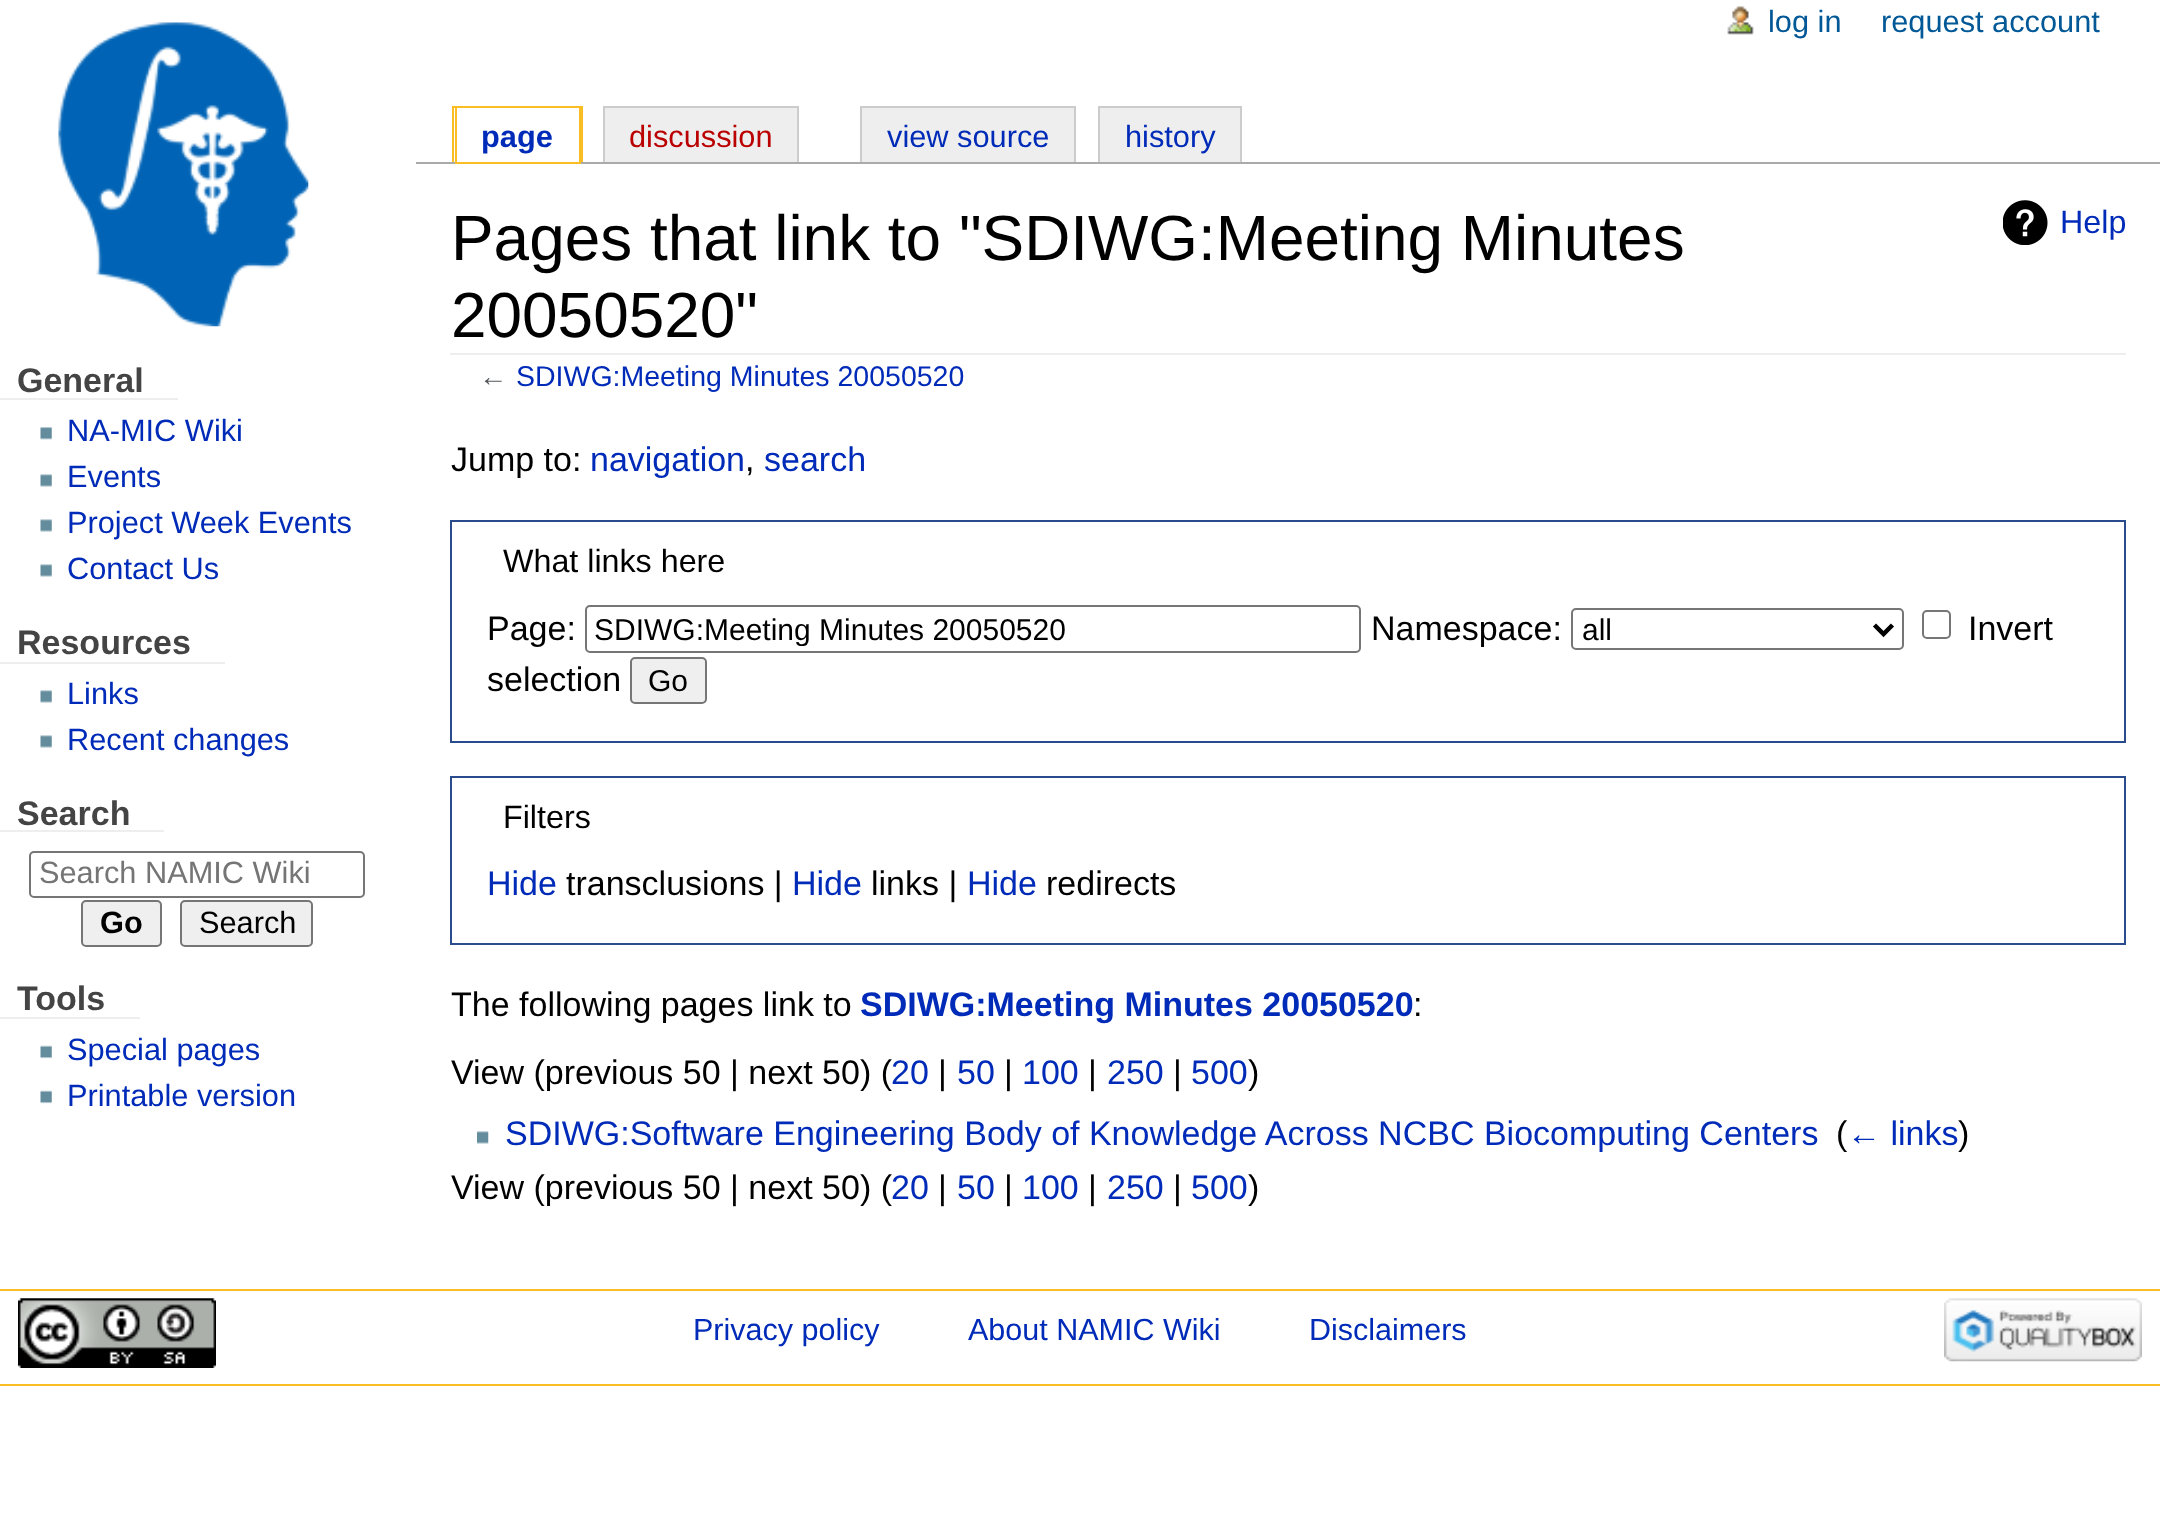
<svg xmlns="http://www.w3.org/2000/svg" width="2160" height="1527">
<style>
.a{font:bold 30.75px Liberation Sans;fill:#002bb8}
.b{font:30.75px Liberation Sans;fill:#ba0000}
.c{font:30.75px Liberation Sans;fill:#002bb8}
.d{font:30.75px Liberation Sans;fill:#005896}
.e{font:bold 34px Liberation Sans;fill:#444}
.f{font:30.75px Liberation Sans;fill:#757575}
.g{font:bold 30.75px Liberation Sans;fill:#000}
.h{font:30.75px Liberation Sans;fill:#000}
.i{font:63.9px Liberation Sans;fill:#000}
.j{font:32.25px Liberation Sans;fill:#002bb8}
.k{font:28.5px Liberation Sans;fill:#54595d}
.l{font:28.5px Liberation Sans;fill:#002bb8}
.m{font:34px Liberation Sans;fill:#000}
.n{font:34px Liberation Sans;fill:#002bb8}
.o{font:32.25px Liberation Sans;fill:#000}
.p{font:30px Liberation Sans;fill:#000}
.q{font:bold 34px Liberation Sans;fill:#002bb8}
.r{font:30.5px Liberation Sans;fill:#002bb8}
</style>
<defs>
<clipPath id="clip1"><path d="M594 612h758v34H594z"/></clipPath>
</defs>
<rect width="100%" height="100%" fill="#fff"/>
<image href="1.png" x="58" y="22" width="251" height="305"/>
<path fill="#fabd23" d="M452 106h3v2H452z"/>
<path fill="#fabd23" d="M581 106h2v56H581z"/>
<path fill="#fabd23" d="M452 106h2v56H452z"/>
<path fill="#eee" stroke="#ccc" stroke-width="2" d="M604 107h194v56H604z"/>
<path fill="#eee" stroke="#ccc" stroke-width="2" d="M861 107h214v56H861z"/>
<path fill="#eee" stroke="#ccc" stroke-width="2" d="M1099 107h142v56H1099z"/>
<path fill="#aaa" d="M414 162h1746v2H414z"/>
<path fill="none" stroke="#fabd23" stroke-width="2" d="M456 107h124v56H456z"/>
<image href="2.png" x="1727" y="6" width="27" height="29"/>
<path fill="#eee" d="M0 398h178v2H0z"/>
<image href="3.png" x="40" y="427" width="12" height="13"/>
<image href="4.png" x="40" y="474" width="12" height="13"/>
<image href="4.png" x="40" y="519" width="12" height="13"/>
<image href="4.png" x="40" y="564" width="12" height="13"/>
<path fill="#eee" d="M0 662h225v2H0z"/>
<image href="4.png" x="40" y="690" width="12" height="13"/>
<image href="4.png" x="40" y="735" width="12" height="13"/>
<path fill="#eee" d="M0 830h164v2H0z"/>
<rect fill="none" stroke="#767676" stroke-width="2" x="30" y="852" width="334" height="45" rx="4"/>
<rect fill="#efefef" stroke="#767676" stroke-width="2" x="82" y="901" width="79" height="45" rx="4"/>
<rect fill="#efefef" stroke="#767676" stroke-width="2" x="181" y="901" width="131" height="45" rx="4"/>
<path fill="#eee" d="M0 1017h140v2H0z"/>
<image href="5.png" x="40" y="1045" width="12" height="14"/>
<image href="5.png" x="40" y="1090" width="12" height="14"/>
<path fill="#fffffe" d="M414 162h2v2H414z"/>
<path fill="#eee" d="M450 353h1676v2H450z"/>
<image href="6.png" x="2003" y="200" width="45" height="45"/>
<path fill="none" stroke="#2a4b8d" stroke-width="2" d="M451 521h1674v221H451z"/>
<rect fill="none" stroke="#767676" stroke-width="2" x="586" y="606" width="774" height="46" rx="4"/>
<rect fill="none" stroke="#767676" stroke-width="2" x="1572" y="609" width="331" height="40" rx="4"/>
<path fill="none" stroke="#000" stroke-width="4.5" d="M1874.5 625l9 9l9-9"/>
<rect fill="none" stroke="#767676" stroke-width="2" x="1923" y="611" width="27" height="27" rx="4"/>
<rect fill="#efefef" stroke="#767676" stroke-width="2" x="631" y="658" width="75" height="45" rx="4"/>
<path fill="none" stroke="#2a4b8d" stroke-width="2" d="M451 777h1674v167H451z"/>
<image href="7.png" x="477" y="1131" width="12" height="13"/>
<path fill="#fabd23" d="M0 1289h2160v2H0z"/>
<path fill="#fabd23" d="M0 1384h2160v2H0z"/>
<image href="8.png" x="18" y="1298" width="198" height="70"/>
<image href="9.png" x="1944" y="1298" width="198" height="64"/>
<text class="a" x="481" y="147">page</text>
<text class="b" x="629" y="147">discussion</text>
<text class="c" x="887" y="147">view source</text>
<text class="c" x="1125" y="147">history</text>
<text class="d" x="1768" y="32">log in</text>
<text class="d" x="1881" y="32">request account</text>
<text class="e" x="17" y="392">General</text>
<text class="c" x="67" y="441">NA-MIC Wiki</text>
<text class="c" x="67" y="487">Events</text>
<text class="c" x="67" y="533">Project Week Events</text>
<text class="c" x="67" y="579">Contact Us</text>
<text class="e" x="17" y="654">Resources</text>
<text class="c" x="67" y="704">Links</text>
<text class="c" x="67" y="750">Recent changes</text>
<text class="e" x="17" y="825">Search</text>
<text class="f" x="39" y="883">Search NAMIC Wiki</text>
<text class="g" x="100" y="933">Go</text>
<text class="h" x="199" y="933">Search</text>
<text class="e" x="17" y="1010">Tools</text>
<text class="c" x="67" y="1060">Special pages</text>
<text class="c" x="67" y="1106">Printable version</text>
<text class="i" x="451" y="260">Pages that link to "SDIWG:Meeting Minutes</text>
<text class="i" x="451" y="337">20050520"</text>
<text class="j" x="2060" y="233">Help</text>
<text class="k" x="479" y="386">←</text>
<text class="l" x="516" y="386">SDIWG:Meeting Minutes 20050520</text>
<text class="m" x="451" y="471">Jump to:</text>
<text class="n" x="590" y="471">navigation</text>
<text class="m" x="745" y="471">,</text>
<text class="n" x="764" y="471">search</text>
<text class="o" x="503" y="572">What links here</text>
<text class="m" x="487" y="640">Page:</text>
<g clip-path="url(#clip1)">
<text class="p" x="594" y="640">SDIWG:Meeting Minutes 20050520</text>
</g>
<text class="m" x="1371" y="640">Namespace:</text>
<text class="p" x="1582" y="640">all</text>
<text class="m" x="1968" y="640">Invert</text>
<text class="m" x="487" y="691">selection</text>
<text class="p" x="648" y="691">Go</text>
<text class="o" x="503" y="828">Filters</text>
<text class="n" x="487" y="895">Hide</text>
<text class="m" x="566" y="895">transclusions |</text>
<text class="n" x="792" y="895">Hide</text>
<text class="m" x="871" y="895">links |</text>
<text class="n" x="967" y="895">Hide</text>
<text class="m" x="1046" y="895">redirects</text>
<text class="m" x="451" y="1016">The following pages link to</text>
<text class="q" x="860" y="1016">SDIWG:Meeting Minutes 20050520</text>
<text class="m" x="1413" y="1016">:</text>
<text class="m" x="451" y="1084">View (previous 50 | next 50) (</text>
<text class="n" x="891" y="1084">20</text>
<text class="m" x="938" y="1084">|</text>
<text class="n" x="957" y="1084">50</text>
<text class="m" x="1004" y="1084">|</text>
<text class="n" x="1022" y="1084">100</text>
<text class="m" x="1088" y="1084">|</text>
<text class="n" x="1107" y="1084">250</text>
<text class="m" x="1173" y="1084">|</text>
<text class="n" x="1191" y="1084">500</text>
<text class="m" x="1248" y="1084">)</text>
<text class="n" x="505" y="1145">SDIWG:Software Engineering Body of Knowledge Across NCBC Biocomputing Centers</text>
<text class="m" x="1836" y="1145">(</text>
<text class="n" x="1847" y="1145">← links</text>
<text class="m" x="1958" y="1145">)</text>
<text class="m" x="451" y="1199">View (previous 50 | next 50) (</text>
<text class="n" x="891" y="1199">20</text>
<text class="m" x="938" y="1199">|</text>
<text class="n" x="957" y="1199">50</text>
<text class="m" x="1004" y="1199">|</text>
<text class="n" x="1022" y="1199">100</text>
<text class="m" x="1088" y="1199">|</text>
<text class="n" x="1107" y="1199">250</text>
<text class="m" x="1173" y="1199">|</text>
<text class="n" x="1191" y="1199">500</text>
<text class="m" x="1248" y="1199">)</text>
<text class="r" x="693" y="1340">Privacy policy</text>
<text class="r" x="968" y="1340">About NAMIC Wiki</text>
<text class="r" x="1309" y="1340">Disclaimers</text>
</svg>
